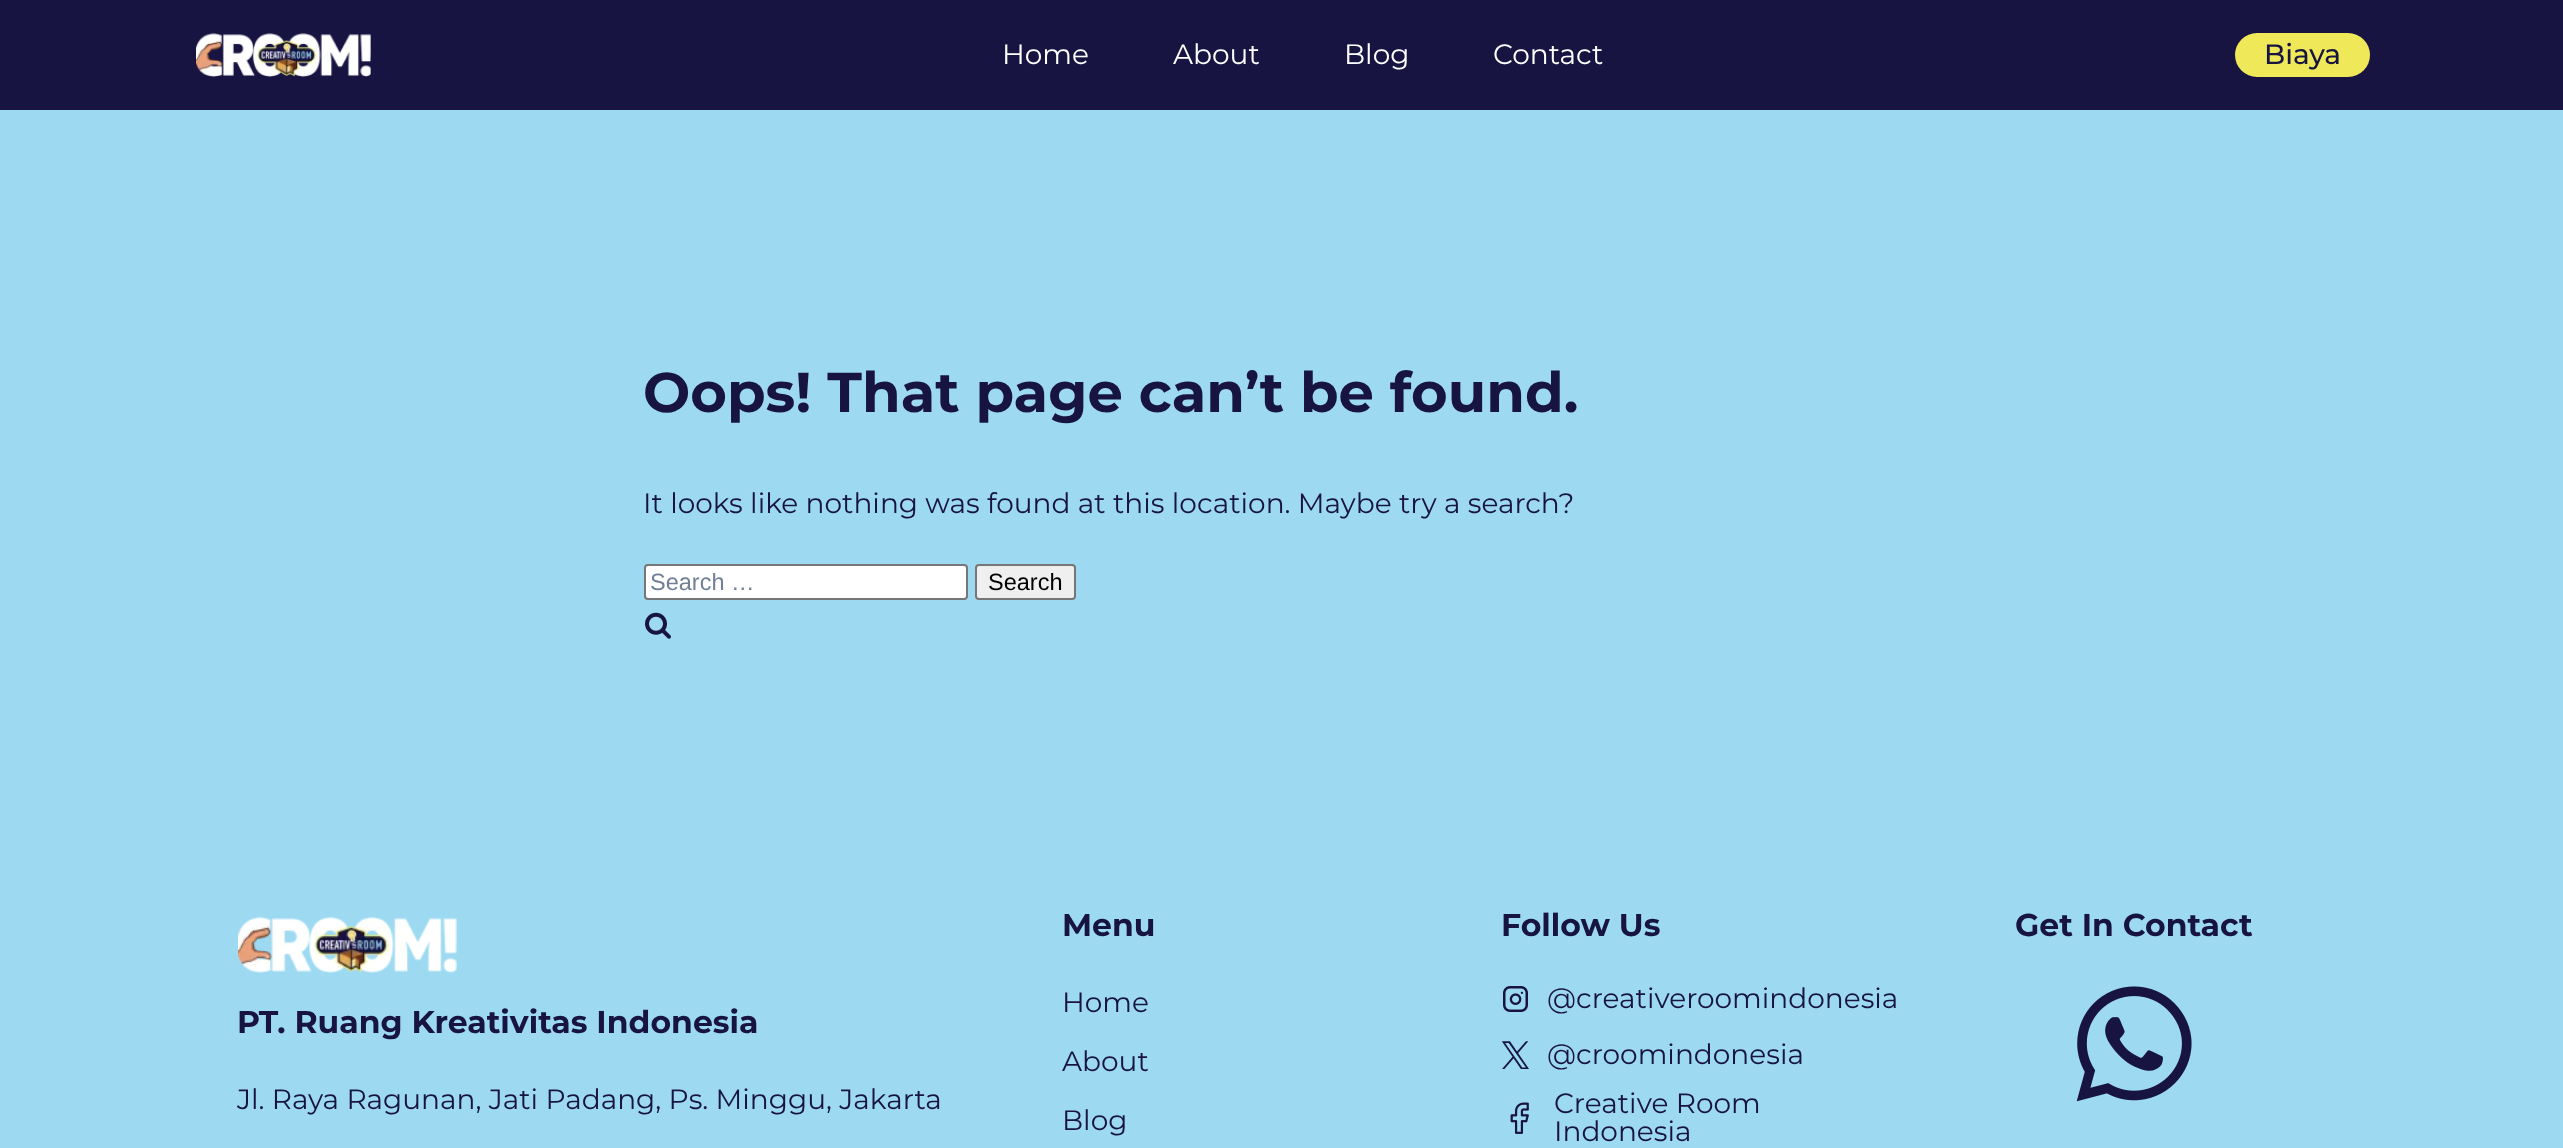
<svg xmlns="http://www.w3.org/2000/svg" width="2563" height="1148">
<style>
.a{font:28px Montserrat;fill:#fff}
.b{font:500 28px Montserrat;fill:#171442}
.c{font:bold 56px Montserrat;fill:#171442}
.d{font:28px Montserrat;fill:#171442}
.e{font:23.5px Liberation Sans;fill:#718096}
.f{font:23.5px Liberation Sans;fill:#000}
.g{font:bold 31.5px Montserrat;fill:#171442}
</style>
<rect width="100%" height="100%" fill="#9ddaf2"/>
<path fill="#171442" d="M0 0h2563v110H0z"/>
<image href="1.png" x="196" y="33" width="175" height="44"/>
<rect fill="#efe959" x="2235" y="33" width="135" height="44" rx="22"/>
<rect fill="#fff" stroke="#767676" stroke-width="2" x="645" y="565" width="322" height="34" rx="3"/>
<rect fill="#efefef" stroke="#767676" stroke-width="2" x="976" y="565" width="99" height="34" rx="3"/>
<image href="2.png" x="645" y="612" width="26" height="27"/>
<image href="3.png" x="1503" y="986" width="25" height="26"/>
<image href="4.png" x="1502" y="1041" width="27" height="28"/>
<image href="5.png" x="1510" y="1102" width="19" height="32"/>
<image href="6.png" x="2076" y="986" width="116" height="116"/>
<image href="7.png" x="238" y="917" width="219" height="56"/>
<text class="a" x="1002" y="64">Home</text>
<text class="a" x="1173" y="64">About</text>
<text class="a" x="1344" y="64">Blog</text>
<text class="a" x="1493" y="64">Contact</text>
<text class="b" x="2264" y="64">Biaya</text>
<text class="c" x="643" y="412">Oops! That page can’t be found.</text>
<text class="d" x="643" y="513">It looks like nothing was found at this location. Maybe try a search?</text>
<text class="e" x="650" y="590">Search …</text>
<text class="f" x="988" y="590">Search</text>
<text class="g" x="1062" y="936">Menu</text>
<text class="d" x="1062" y="1012">Home</text>
<text class="d" x="1062" y="1071">About</text>
<text class="d" x="1062" y="1130">Blog</text>
<text class="g" x="1501" y="936">Follow Us</text>
<text class="d" x="1547" y="1008">@creativeroomindonesia</text>
<text class="d" x="1547" y="1064">@croomindonesia</text>
<text class="d" x="1554" y="1113">Creative Room</text>
<text class="d" x="1554" y="1141">Indonesia</text>
<text class="g" x="2015" y="936">Get In Contact</text>
<text class="g" x="237" y="1033">PT. Ruang Kreativitas Indonesia</text>
<text class="d" x="237" y="1109">Jl. Raya Ragunan, Jati Padang, Ps. Minggu, Jakarta</text>
</svg>
